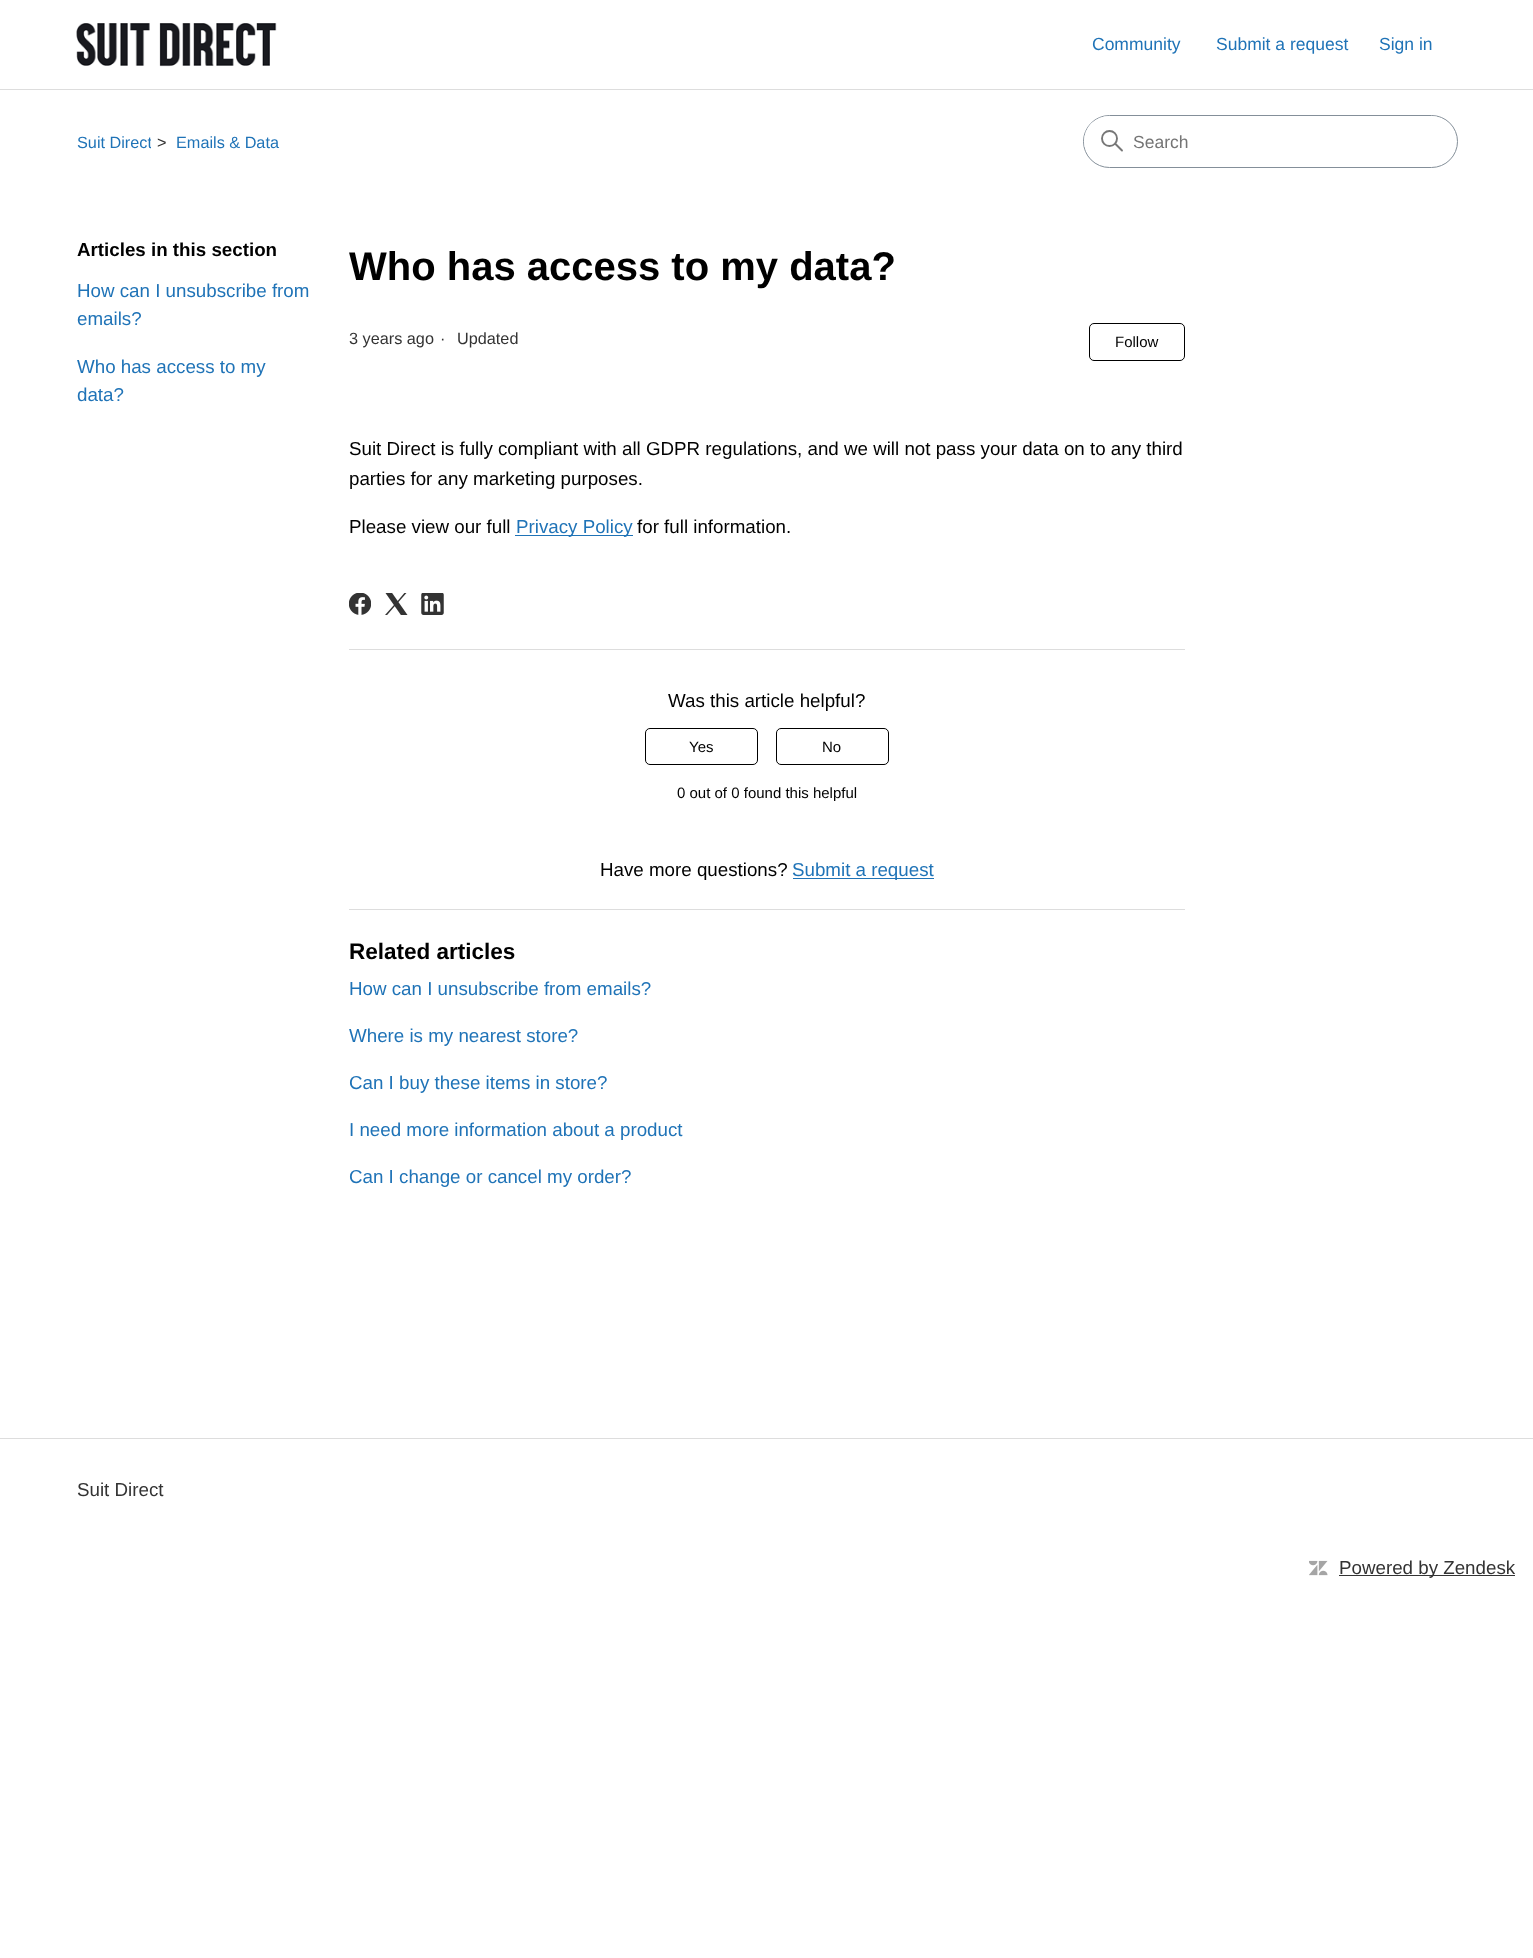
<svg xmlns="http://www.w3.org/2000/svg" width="1533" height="1958">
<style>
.a{font:17.5px Liberation Sans;fill:#1f73b7}
.b{font:16.25px Liberation Sans;fill:#1f73b7}
.c{font:16.25px Liberation Sans;fill:#333}
.d{font:17.5px Liberation Sans;fill:#757575}
.e{font:bold 18.75px Liberation Sans;fill:#000}
.f{font:18.75px Liberation Sans;fill:#1f73b7}
.g{font:bold 40px Liberation Sans;fill:#000}
.h{font:15px Liberation Sans;fill:#000}
.i{font:18.75px Liberation Sans;fill:#000}
.j{font:bold 22.5px Liberation Sans;fill:#000}
.k{font:18.75px Liberation Sans;fill:#333}
</style>
<defs>
<clipPath id="clip1"><path d="M76 130h75v25H76z"/></clipPath>
</defs>
<rect width="100%" height="100%" fill="#fff"/>
<image href="1.png" x="76" y="23" width="201" height="44"/>
<path fill="#ddd" d="M0 89h1533v1H0z"/>
<rect fill="none" stroke="#848f99" x="1083.5" y="115.5" width="374" height="52" rx="26"/>
<rect fill="#fff" x="1084" y="116" width="372" height="50" rx="25"/>
<circle fill="none" stroke="#777" stroke-width="1.9" cx="1109.5" cy="138.5" r="7.5"/>
<path fill="none" stroke="#777" stroke-width="1.9" stroke-linecap="round" d="M1122 150.5l-6.5-6.5"/>
<rect fill="none" stroke="#000" x="1089.5" y="323.5" width="95" height="37" rx="4.5"/>
<path fill="#1f73b7" d="M515 535h118v1H515z"/>
<image href="2.png" x="349" y="593" width="22" height="22"/>
<image href="3.png" x="385" y="593" width="23" height="22"/>
<image href="4.png" x="421" y="593" width="23" height="22"/>
<path fill="#ddd" d="M349 649h836v1H349z"/>
<rect fill="none" stroke="#000" x="645.5" y="728.5" width="112" height="36" rx="4.5"/>
<rect fill="none" stroke="#000" x="776.5" y="728.5" width="112" height="36" rx="4.5"/>
<path fill="#1f73b7" d="M793 878h141v1H793z"/>
<path fill="#ddd" d="M349 909h836v1H349z"/>
<path fill="#ddd" d="M0 1438h1533v1H0z"/>
<image href="5.png" x="1309" y="1560" width="19" height="16"/>
<path fill="#333" d="M1339 1575h176v1H1339z"/>
<text class="a" x="1092" y="50">Community</text>
<text class="a" x="1216" y="50">Submit a request</text>
<text class="a" x="1379" y="50">Sign in</text>
<g clip-path="url(#clip1)">
<text class="b" x="77" y="148">Suit Direct</text>
</g>
<text class="c" x="157" y="148">&gt;</text>
<text class="b" x="176" y="148">Emails &amp; Data</text>
<text class="d" x="1133" y="148">Search</text>
<text class="e" x="77" y="256">Articles in this section</text>
<text class="f" x="77" y="297">How can I unsubscribe from</text>
<text class="f" x="77" y="325">emails?</text>
<text class="f" x="77" y="373">Who has access to my</text>
<text class="f" x="77" y="401">data?</text>
<text class="g" x="349" y="280">Who has access to my data?</text>
<text class="c" x="349" y="344">3 years ago</text>
<text class="c" x="440" y="344">·</text>
<text class="c" x="457" y="344">Updated</text>
<text class="h" x="1115" y="347">Follow</text>
<text class="i" x="349" y="455">Suit Direct is fully compliant with all GDPR regulations, and we will not pass your data on to any third</text>
<text class="i" x="349" y="485">parties for any marketing purposes.</text>
<text class="i" x="349" y="533">Please view our full</text>
<text class="f" x="516" y="533">Privacy Policy</text>
<text class="i" x="637" y="533">for full information.</text>
<text class="i" x="668" y="707">Was this article helpful?</text>
<text class="h" x="689" y="752">Yes</text>
<text class="h" x="822" y="752">No</text>
<text class="h" x="677" y="798">0 out of 0 found this helpful</text>
<text class="i" x="600" y="876">Have more questions?</text>
<text class="f" x="792" y="876">Submit a request</text>
<text class="j" x="349" y="959">Related articles</text>
<text class="f" x="349" y="995">How can I unsubscribe from emails?</text>
<text class="f" x="349" y="1042">Where is my nearest store?</text>
<text class="f" x="349" y="1089">Can I buy these items in store?</text>
<text class="f" x="349" y="1136">I need more information about a product</text>
<text class="f" x="349" y="1183">Can I change or cancel my order?</text>
<text class="k" x="77" y="1496">Suit Direct</text>
<text class="k" x="1339" y="1574">Powered by Zendesk</text>
</svg>
